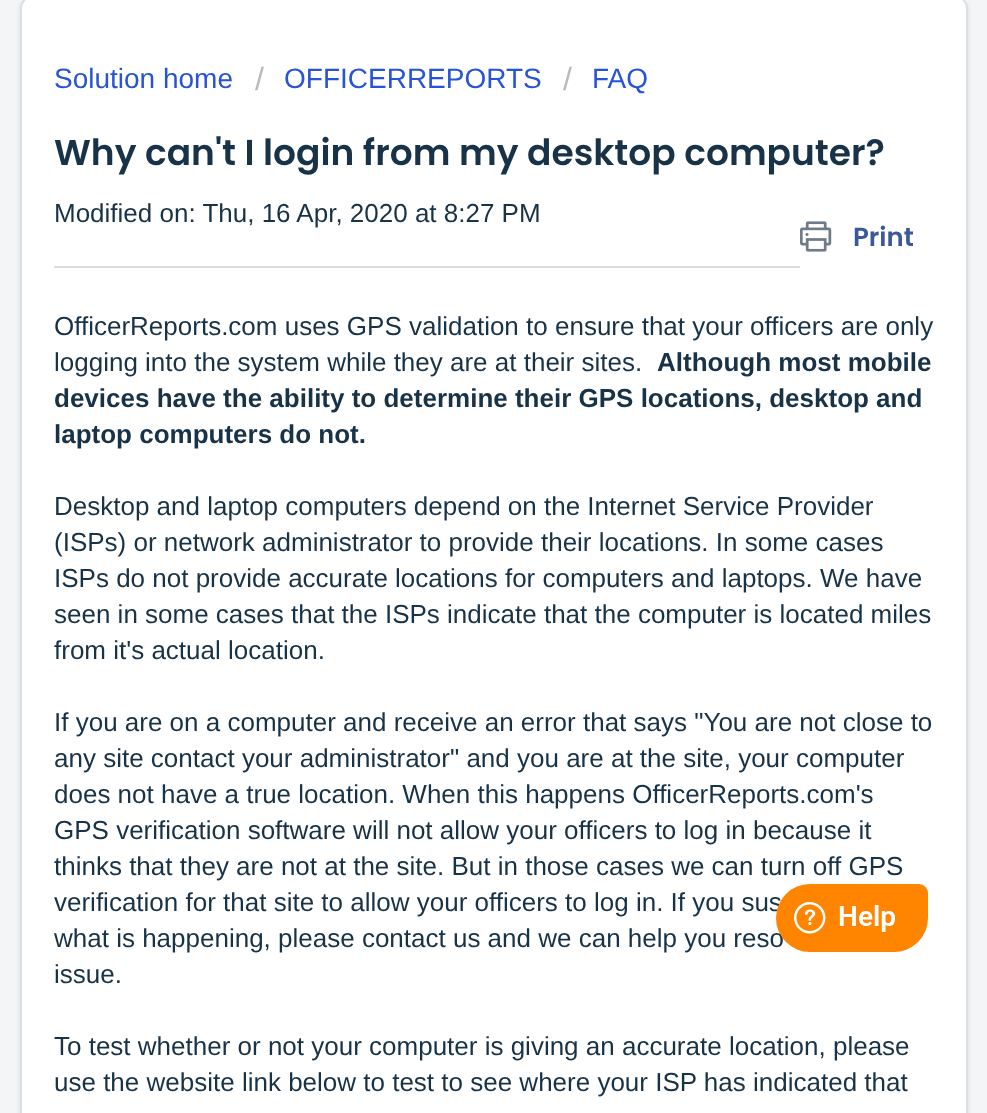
<svg xmlns="http://www.w3.org/2000/svg" width="987" height="1113">
<style>
.a{font:28px Liberation Sans;fill:#2753d7}
.b{font:32px Liberation Sans;fill:#bbb}
.c{font:600 36px Poppins;fill:#183247}
.d{font:600 26px Poppins;fill:#3b5998}
.e{font:26px Liberation Sans;fill:#183247}
.f{font:bold 26px Liberation Sans;fill:#183247}
</style>
<rect width="100%" height="100%" fill="#f3f5f7"/>
<path fill="#f8f9fa" d="M20 0h948v8H20z"/>
<rect fill="#3f3f4426" filter="blur(2px)" x="20" y="-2" width="948" height="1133" rx="12"/>
<rect fill="#fff" stroke="#dadfe3" stroke-width="2" x="21" y="-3" width="946" height="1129" rx="11"/>
<image href="1.png" x="800" y="221" width="32" height="31"/>
<path fill="#dcdcdc" d="M54 266h746v2H54z"/>
<text class="a" x="54" y="88">Solution home</text>
<text class="b" x="255" y="90">/</text>
<text class="a" x="284" y="88">OFFICERREPORTS</text>
<text class="b" x="563" y="90">/</text>
<text class="a" x="592" y="88">FAQ</text>
<text class="c" x="54" y="165">Why can't I login from my desktop computer?</text>
<text class="d" x="853" y="246">Print</text>
<text class="e" x="54" y="222">Modified on: Thu, 16 Apr, 2020 at 8:27 PM</text>
<text class="e" x="54" y="335">OfficerReports.com uses GPS validation to ensure that your officers are only</text>
<text class="e" x="54" y="371">logging into the system while they are at their sites.</text>
<text class="f" x="657" y="371">Although most mobile</text>
<text class="f" x="54" y="407">devices have the ability to determine their GPS locations, desktop and</text>
<text class="f" x="54" y="443">laptop computers do not.</text>
<text class="e" x="54" y="515">Desktop and laptop computers depend on the Internet Service Provider</text>
<text class="e" x="54" y="551">(ISPs) or network administrator to provide their locations. In some cases</text>
<text class="e" x="54" y="587">ISPs do not provide accurate locations for computers and laptops. We have</text>
<text class="e" x="54" y="623">seen in some cases that the ISPs indicate that the computer is located miles</text>
<text class="e" x="54" y="659">from it's actual location.</text>
<text class="e" x="54" y="731">If you are on a computer and receive an error that says "You are not close to</text>
<text class="e" x="54" y="767">any site contact your administrator" and you are at the site, your computer</text>
<text class="e" x="54" y="803">does not have a true location. When this happens OfficerReports.com's</text>
<text class="e" x="54" y="839">GPS verification software will not allow your officers to log in because it</text>
<text class="e" x="54" y="875">thinks that they are not at the site. But in those cases we can turn off GPS</text>
<text class="e" x="54" y="911">verification for that site to allow your officers to log in. If you sus</text>
<text class="e" x="54" y="947">what is happening, please contact us and we can help you reso</text>
<text class="e" x="54" y="983">issue.</text>
<text class="e" x="54" y="1055">To test whether or not your computer is giving an accurate location, please</text>
<text class="e" x="54" y="1091">use the website link below to test to see where your ISP has indicated that</text>
<image href="2.png" x="776" y="884" width="152" height="68"/>
</svg>
